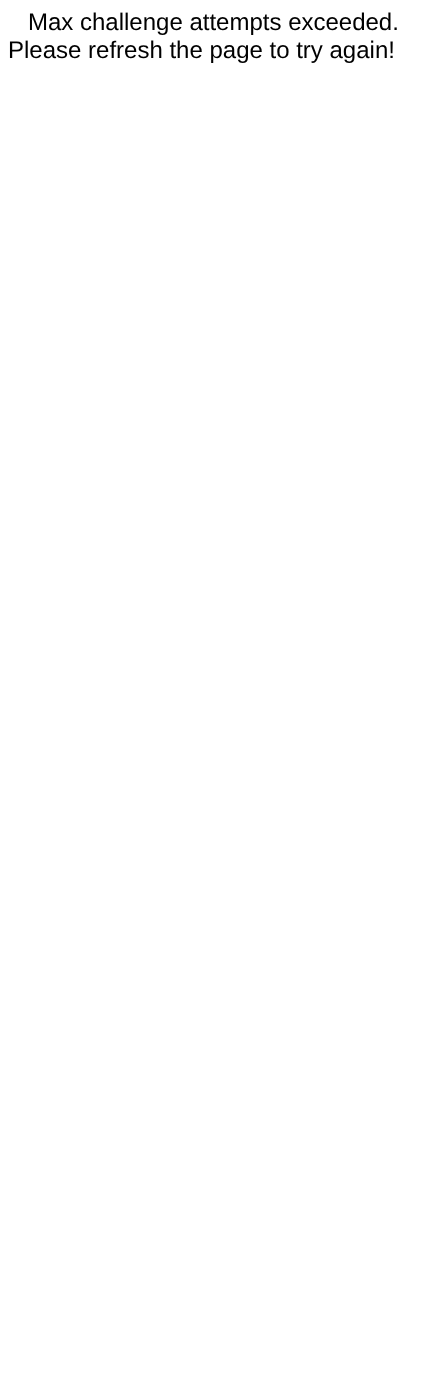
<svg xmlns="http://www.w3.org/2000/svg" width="448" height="1397">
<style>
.a{font:24px Liberation Sans;fill:#000}
</style>
<rect width="100%" height="100%" fill="#fff"/>
<text class="a" x="28" y="30">Max challenge attempts exceeded.</text>
<text class="a" x="8" y="58">Please refresh the page to try again!</text>
</svg>
